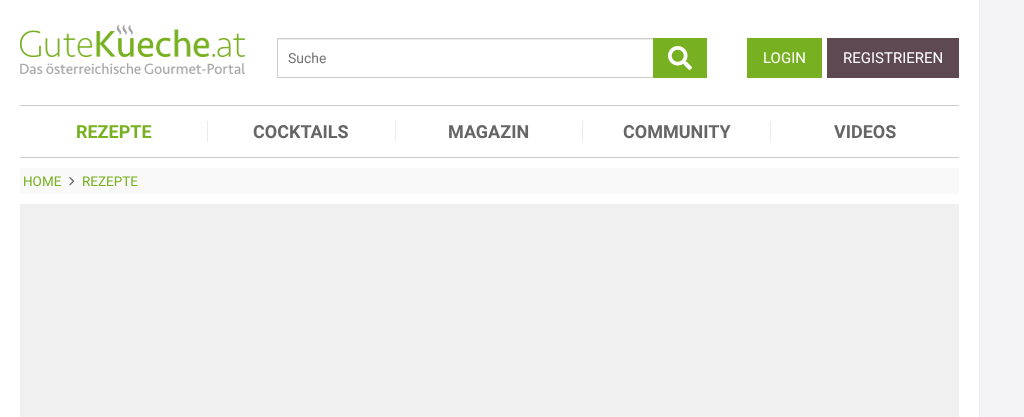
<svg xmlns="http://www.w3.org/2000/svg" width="1024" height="417">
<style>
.a{font:14px Roboto;fill:#757575}
.b{font:15px Roboto;fill:#fff}
.c{font:bold 18px Roboto;fill:#77b020}
.d{font:bold 18px Roboto;fill:#666}
.e{font:13.5px Roboto;fill:#77b020}
</style>
<rect width="100%" height="100%" fill="#f4f4f6"/>
<path fill="#fff" d="M0 0h979v417H0z"/>
<path fill="#eaeaec" d="M979 0h1v417H979z"/>
<image href="1.png" x="20" y="25" width="225" height="49"/>
<path fill="#ececec" d="M278 39h375v1H278z"/>
<path fill="none" stroke="#ccc" d="M277.5 38.5h429v39H277.5z"/>
<path fill="#77b020" d="M653 38h54v40H653z"/>
<image href="2.png" x="668" y="46" width="24" height="24"/>
<path fill="#77b020" d="M747 38h75v40H747z"/>
<path fill="#5e4952" d="M827 38h132v40H827z"/>
<path fill="#ccc" d="M20 105h939v1H20z"/>
<path fill="#ccc" d="M20 157h939v1H20z"/>
<path fill="#eaeaec" d="M207 121h1v21H207z"/>
<path fill="#eaeaec" d="M395 121h1v21H395z"/>
<path fill="#eaeaec" d="M582 121h1v21H582z"/>
<path fill="#eaeaec" d="M770 121h1v21H770z"/>
<path fill="#f9f9f9" d="M20 168h939v26H20z"/>
<image href="3.png" x="69" y="177" width="6" height="9"/>
<path fill="#f0f0f0" d="M20 204h939v213H20z"/>
<text class="a" x="288" y="63">Suche</text>
<text class="b" x="763" y="63">LOGIN</text>
<text class="b" x="843" y="63">REGISTRIEREN</text>
<text class="c" x="76" y="138">REZEPTE</text>
<text class="d" x="253" y="138">COCKTAILS</text>
<text class="d" x="448" y="138">MAGAZIN</text>
<text class="d" x="623" y="138">COMMUNITY</text>
<text class="d" x="834" y="138">VIDEOS</text>
<text class="e" x="23" y="186">HOME</text>
<text class="e" x="82" y="186">REZEPTE</text>
</svg>
